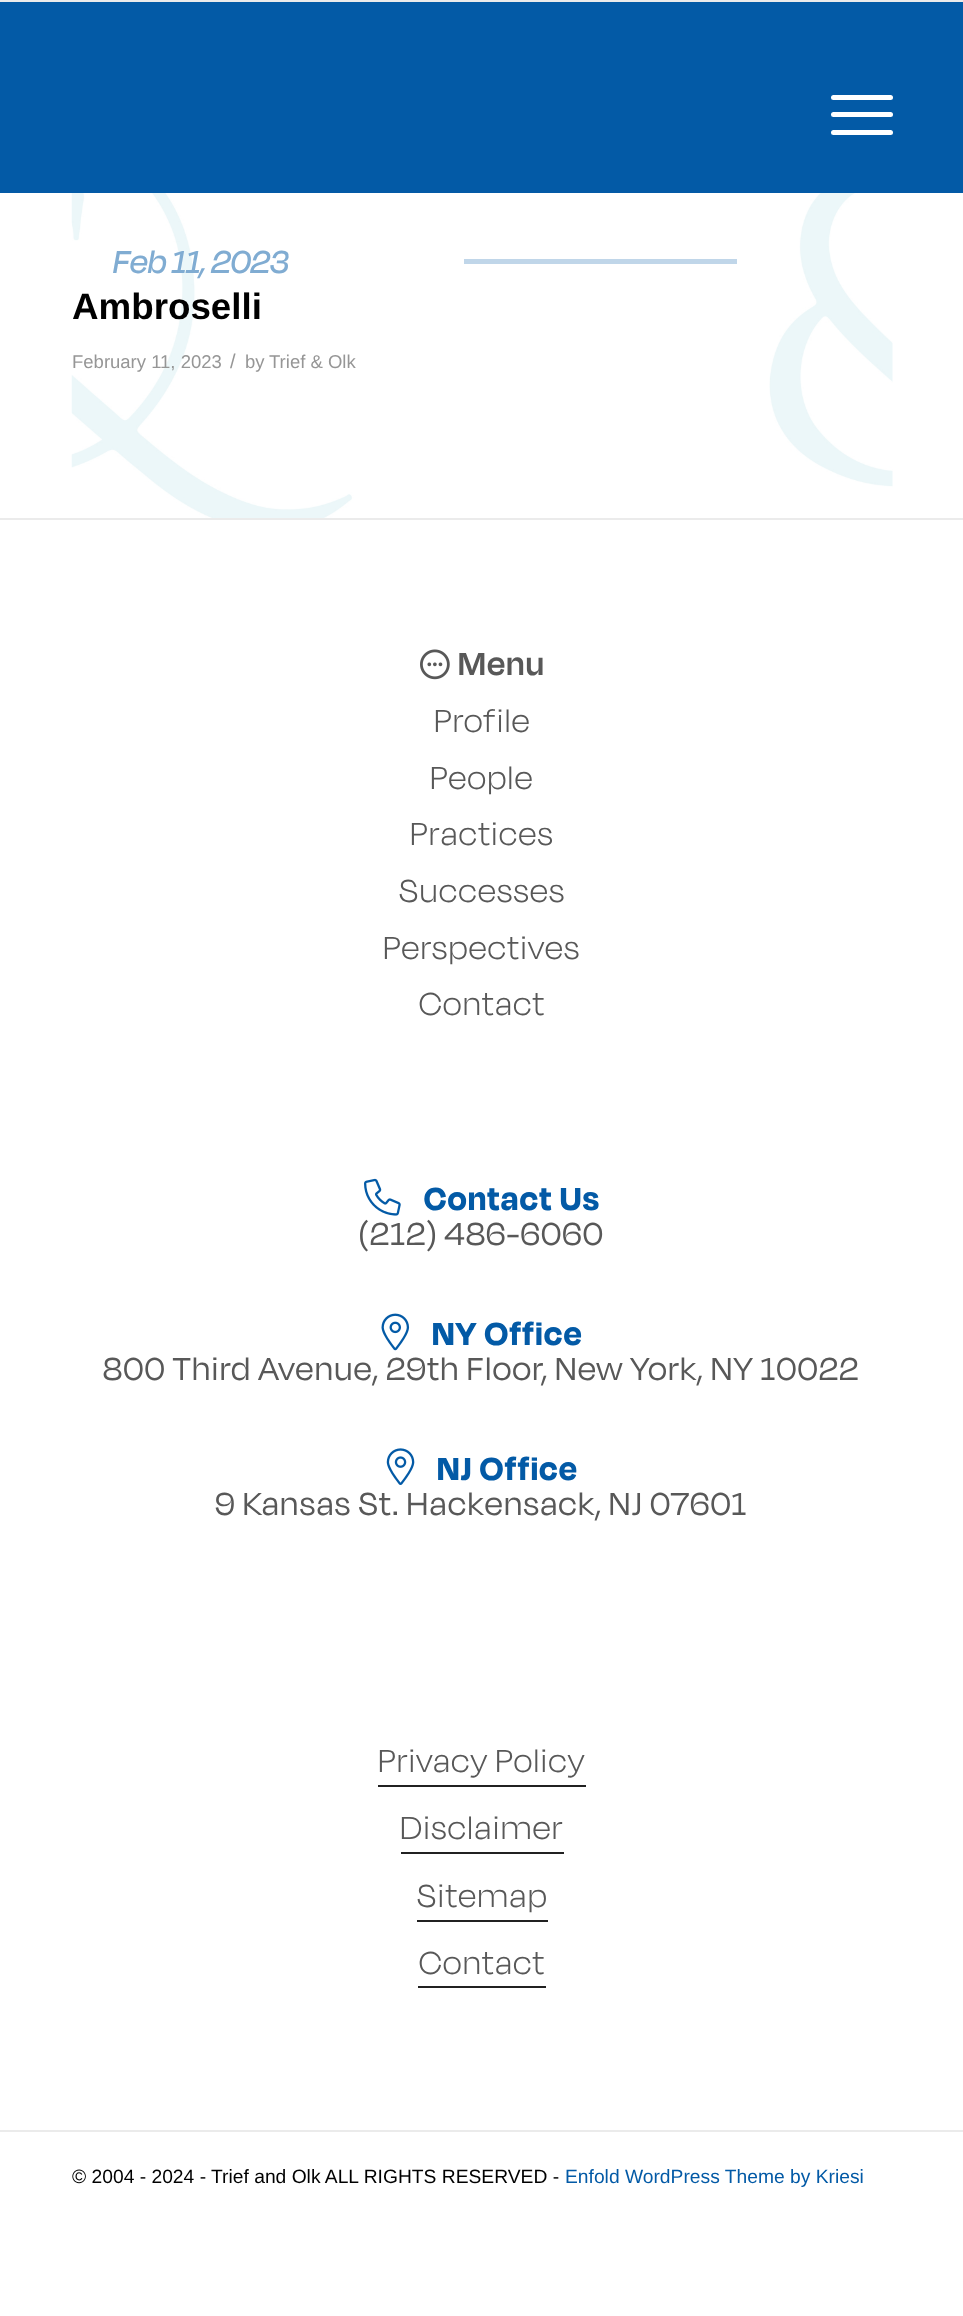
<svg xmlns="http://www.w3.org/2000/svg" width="963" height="2316">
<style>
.a{font:italic 500 36.75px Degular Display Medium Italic;fill:#80acd2}
.b{font:bold 36.75px Liberation Sans;fill:#000}
.c{font:18.5px Liberation Sans;fill:#969696}
.d{font:20px Liberation Sans;fill:#969696}
.e{font:600 36.75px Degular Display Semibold;letter-spacing:1.45px;fill:#585858}
.f{font:300 36.75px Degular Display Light;letter-spacing:1.45px;fill:#585858}
.g{font:bold 36.75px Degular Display;letter-spacing:1.45px;fill:#035aa6}
.h{font:36.75px Degular Display;letter-spacing:1.45px;fill:#585858}
.i{font:19.25px Liberation Sans;fill:#000}
.j{font:19.25px Liberation Sans;fill:#035aa6}
</style>
<rect width="100%" height="100%" fill="#fff"/>
<path fill="#ebebeb" d="M0 0h963v2H0z"/>
<path fill="#035aa6" d="M0 2h963v191H0z"/>
<rect fill="#fff" x="831" y="112" width="62" height="5" rx="2.5"/>
<rect fill="#fff" x="831" y="95" width="62" height="5" rx="2.5"/>
<rect fill="#fff" x="831" y="130" width="62" height="5" rx="2.5"/>
<image href="1.png" x="71" y="193" width="822" height="325"/>
<path fill="#c0d6e9" d="M464 259h273v5H464z"/>
<path fill="#ebebeb" d="M0 518h963v2H0z"/>
<image href="2.png" x="420" y="649" width="30" height="31"/>
<image href="3.png" x="364" y="1178" width="37" height="38"/>
<image href="4.png" x="381" y="1313" width="29" height="38"/>
<image href="5.png" x="386" y="1448" width="29" height="37"/>
<path fill="#212121" d="M378 1785h208v2H378z"/>
<path fill="#212121" d="M401 1852h163v2H401z"/>
<path fill="#212121" d="M417 1920h131v2H417z"/>
<path fill="#212121" d="M418 1986h128v2H418z"/>
<path fill="#ebebeb" d="M0 2130h963v2H0z"/>
<text class="a" x="113" y="273">Feb 11, 2023</text>
<text class="b" x="72" y="319">Ambroselli</text>
<text class="c" x="72" y="368">February 11, 2023</text>
<text class="d" x="230" y="368">/</text>
<text class="c" x="245" y="368">by</text>
<text class="c" x="269" y="368">Trief &amp; Olk</text>
<text class="e" x="458" y="675">Menu</text>
<text class="f" x="434" y="732">Profile</text>
<text class="f" x="430" y="789">People</text>
<text class="f" x="410" y="845">Practices</text>
<text class="f" x="399" y="902">Successes</text>
<text class="f" x="383" y="959">Perspectives</text>
<text class="f" x="419" y="1015">Contact</text>
<text class="g" x="424" y="1210">Contact Us</text>
<text class="h" x="359" y="1245">(212) 486-6060</text>
<text class="g" x="432" y="1345">NY Office</text>
<text class="h" x="103" y="1380">800 Third Avenue, 29th Floor, New York, NY 10022</text>
<text class="g" x="437" y="1480">NJ Office</text>
<text class="h" x="215" y="1515">9 Kansas St. Hackensack, NJ 07601</text>
<text class="f" x="378" y="1772">Privacy Policy</text>
<text class="f" x="400" y="1839">Disclaimer</text>
<text class="f" x="417" y="1907">Sitemap</text>
<text class="f" x="419" y="1974">Contact</text>
<text class="i" x="72" y="2183">© 2004 - 2024 - Trief and Olk ALL RIGHTS RESERVED -</text>
<text class="j" x="565" y="2183">Enfold WordPress Theme by Kriesi</text>
</svg>
